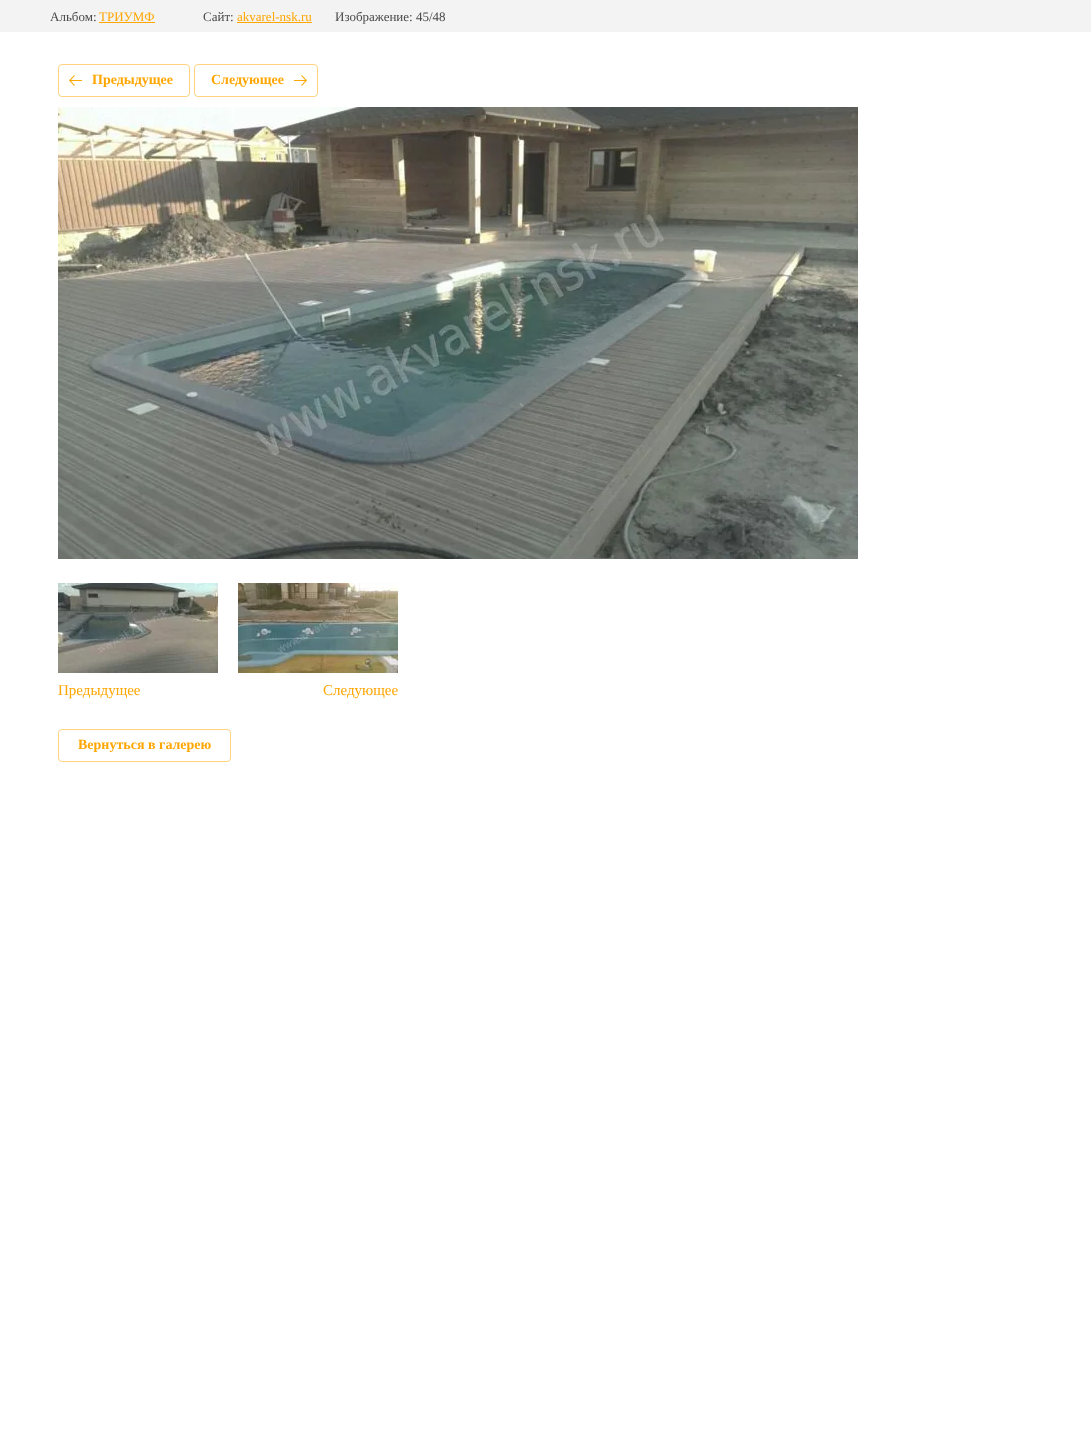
<svg xmlns="http://www.w3.org/2000/svg" width="1091" height="1432">
<style>
.a{font:13px Liberation Serif;fill:#484848}
.b{font:13px Liberation Serif;fill:#ffa601}
.c{font:bold 14px Liberation Serif;fill:#ffa601}
.d{font:15px Liberation Serif;fill:#ffa601}
</style>
<rect width="100%" height="100%" fill="#fff"/>
<path fill="#f3f3f3" d="M0 0h1091v32H0z"/>
<path fill="#ffa601" d="M99 22h56v1H99z"/>
<path fill="#ffa601" d="M237 22h75v1H237z"/>
<rect fill="none" stroke="#ffd380" x="58.5" y="64.5" width="131" height="32" rx="3.5"/>
<image href="1.png" x="69" y="75" width="13" height="11"/>
<rect fill="none" stroke="#ffd380" x="194.5" y="64.5" width="123" height="32" rx="3.5"/>
<image href="2.png" x="294" y="75" width="13" height="11"/>
<image href="3.png" x="58" y="107" width="800" height="452"/>
<image href="4.png" x="58" y="583" width="160" height="90"/>
<image href="5.png" x="238" y="583" width="160" height="90"/>
<rect fill="none" stroke="#ffd380" x="58.5" y="729.5" width="172" height="32" rx="3.5"/>
<text class="a" x="50" y="21">Альбом:</text>
<text class="b" x="99" y="21">ТРИУМФ</text>
<text class="a" x="203" y="21">Сайт:</text>
<text class="b" x="237" y="21">akvarel-nsk.ru</text>
<text class="a" x="335" y="21">Изображение: 45/48</text>
<text class="c" x="92" y="84">Предыдущее</text>
<text class="c" x="211" y="84">Следующее</text>
<text class="d" x="58" y="695">Предыдущее</text>
<text class="d" x="323" y="695">Следующее</text>
<text class="c" x="78" y="749">Вернуться в галерею</text>
</svg>
